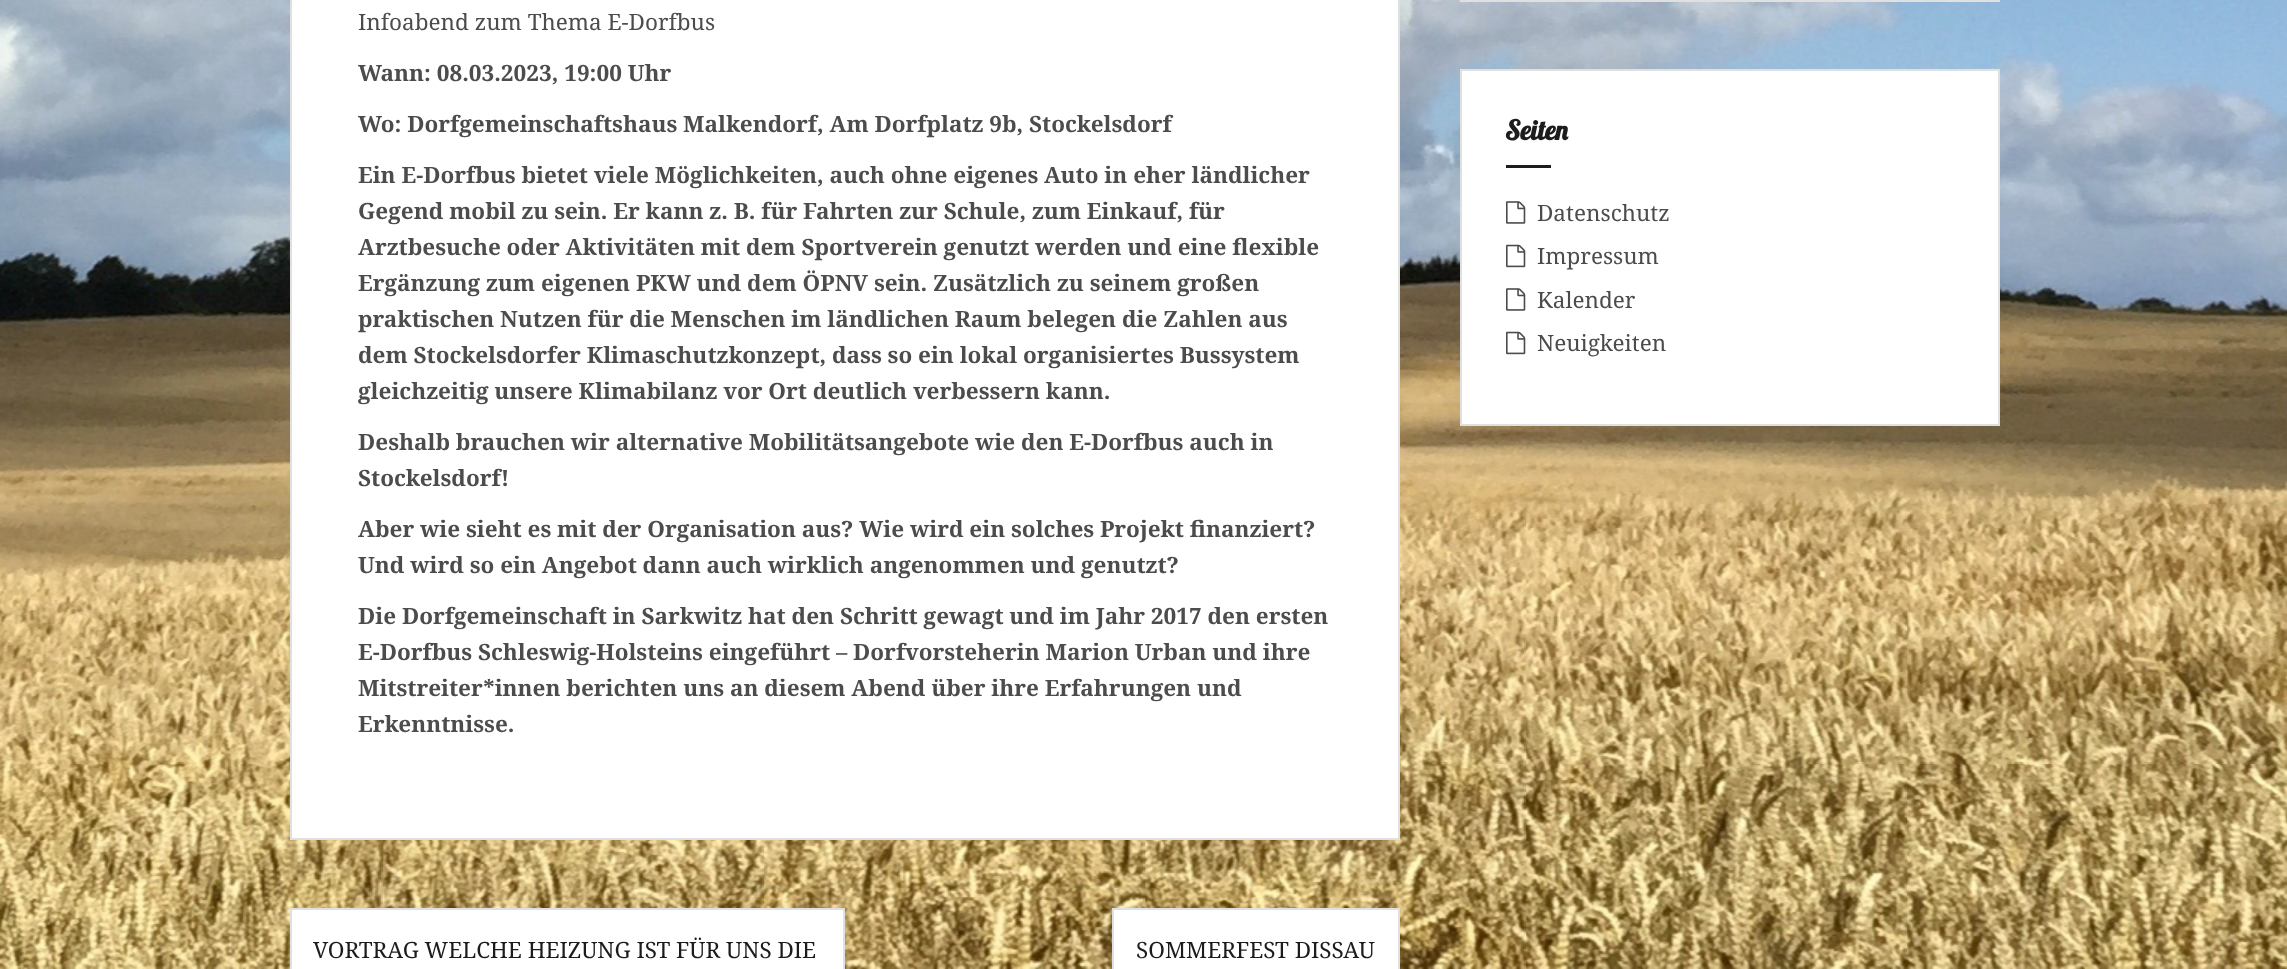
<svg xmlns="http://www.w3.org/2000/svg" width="2287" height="969">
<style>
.a{font:22.5px Noto Serif;fill:#4c4c4c}
.b{font:bold 22.5px Noto Serif;fill:#4c4c4c}
.c{font:22.5px Noto Serif;fill:#1c1c1c}
.d{font:bold 27px Lobster;fill:#1c1c1c}
</style>
<rect width="100%" height="100%" fill="#fff"/>
<image href="1.png" x="0" y="0" width="2287" height="969"/>
<path fill="#fff" stroke="#e0e0e0" stroke-width="2" d="M291 -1h1108v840H291z"/>
<path fill="#fff" stroke="#e0e0e0" stroke-width="2" d="M291 909h553v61H291z"/>
<path fill="#fff" stroke="#e0e0e0" stroke-width="2" d="M1113 909h286v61H1113z"/>
<path fill="none" stroke="#e0e0e0" stroke-width="2" d="M1461 -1h538v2H1461z"/>
<path fill="#fff" stroke="#e0e0e0" stroke-width="2" d="M1461 70h538v355H1461z"/>
<path fill="#1c1c1c" d="M1506 165h45v3H1506z"/>
<image href="2.png" x="1506" y="201" width="20" height="23"/>
<image href="3.png" x="1506" y="244" width="20" height="24"/>
<image href="2.png" x="1506" y="288" width="20" height="23"/>
<image href="3.png" x="1506" y="331" width="20" height="24"/>
<text class="a" x="358" y="30">Infoabend zum Thema E-Dorfbus</text>
<text class="b" x="358" y="81">Wann: 08.03.2023, 19:00 Uhr</text>
<text class="b" x="358" y="132">Wo: Dorfgemeinschaftshaus Malkendorf, Am Dorfplatz 9b, Stockelsdorf</text>
<text class="b" x="358" y="183">Ein E-Dorfbus bietet viele Möglichkeiten, auch ohne eigenes Auto in eher ländlicher</text>
<text class="b" x="358" y="219">Gegend mobil zu sein. Er kann z. B. für Fahrten zur Schule, zum Einkauf, für</text>
<text class="b" x="358" y="255">Arztbesuche oder Aktivitäten mit dem Sportverein genutzt werden und eine flexible</text>
<text class="b" x="358" y="291">Ergänzung zum eigenen PKW und dem ÖPNV sein. Zusätzlich zu seinem großen</text>
<text class="b" x="358" y="327">praktischen Nutzen für die Menschen im ländlichen Raum belegen die Zahlen aus</text>
<text class="b" x="358" y="363">dem Stockelsdorfer Klimaschutzkonzept, dass so ein lokal organisiertes Bussystem</text>
<text class="b" x="358" y="399">gleichzeitig unsere Klimabilanz vor Ort deutlich verbessern kann.</text>
<text class="b" x="358" y="450">Deshalb brauchen wir alternative Mobilitätsangebote wie den E-Dorfbus auch in</text>
<text class="b" x="358" y="486">Stockelsdorf!</text>
<text class="b" x="358" y="537">Aber wie sieht es mit der Organisation aus? Wie wird ein solches Projekt finanziert?</text>
<text class="b" x="358" y="573">Und wird so ein Angebot dann auch wirklich angenommen und genutzt?</text>
<text class="b" x="358" y="624">Die Dorfgemeinschaft in Sarkwitz hat den Schritt gewagt und im Jahr 2017 den ersten</text>
<text class="b" x="358" y="660">E-Dorfbus Schleswig-Holsteins eingeführt – Dorfvorsteherin Marion Urban und ihre</text>
<text class="b" x="358" y="696">Mitstreiter*innen berichten uns an diesem Abend über ihre Erfahrungen und</text>
<text class="b" x="358" y="732">Erkenntnisse.</text>
<text class="c" x="313" y="958">VORTRAG WELCHE HEIZUNG IST FÜR UNS DIE</text>
<text class="c" x="1136" y="958">SOMMERFEST DISSAU</text>
<text class="d" x="1505" y="140">Seiten</text>
<text class="a" x="1537" y="221">Datenschutz</text>
<text class="a" x="1537" y="264">Impressum</text>
<text class="a" x="1537" y="308">Kalender</text>
<text class="a" x="1537" y="351">Neuigkeiten</text>
</svg>
